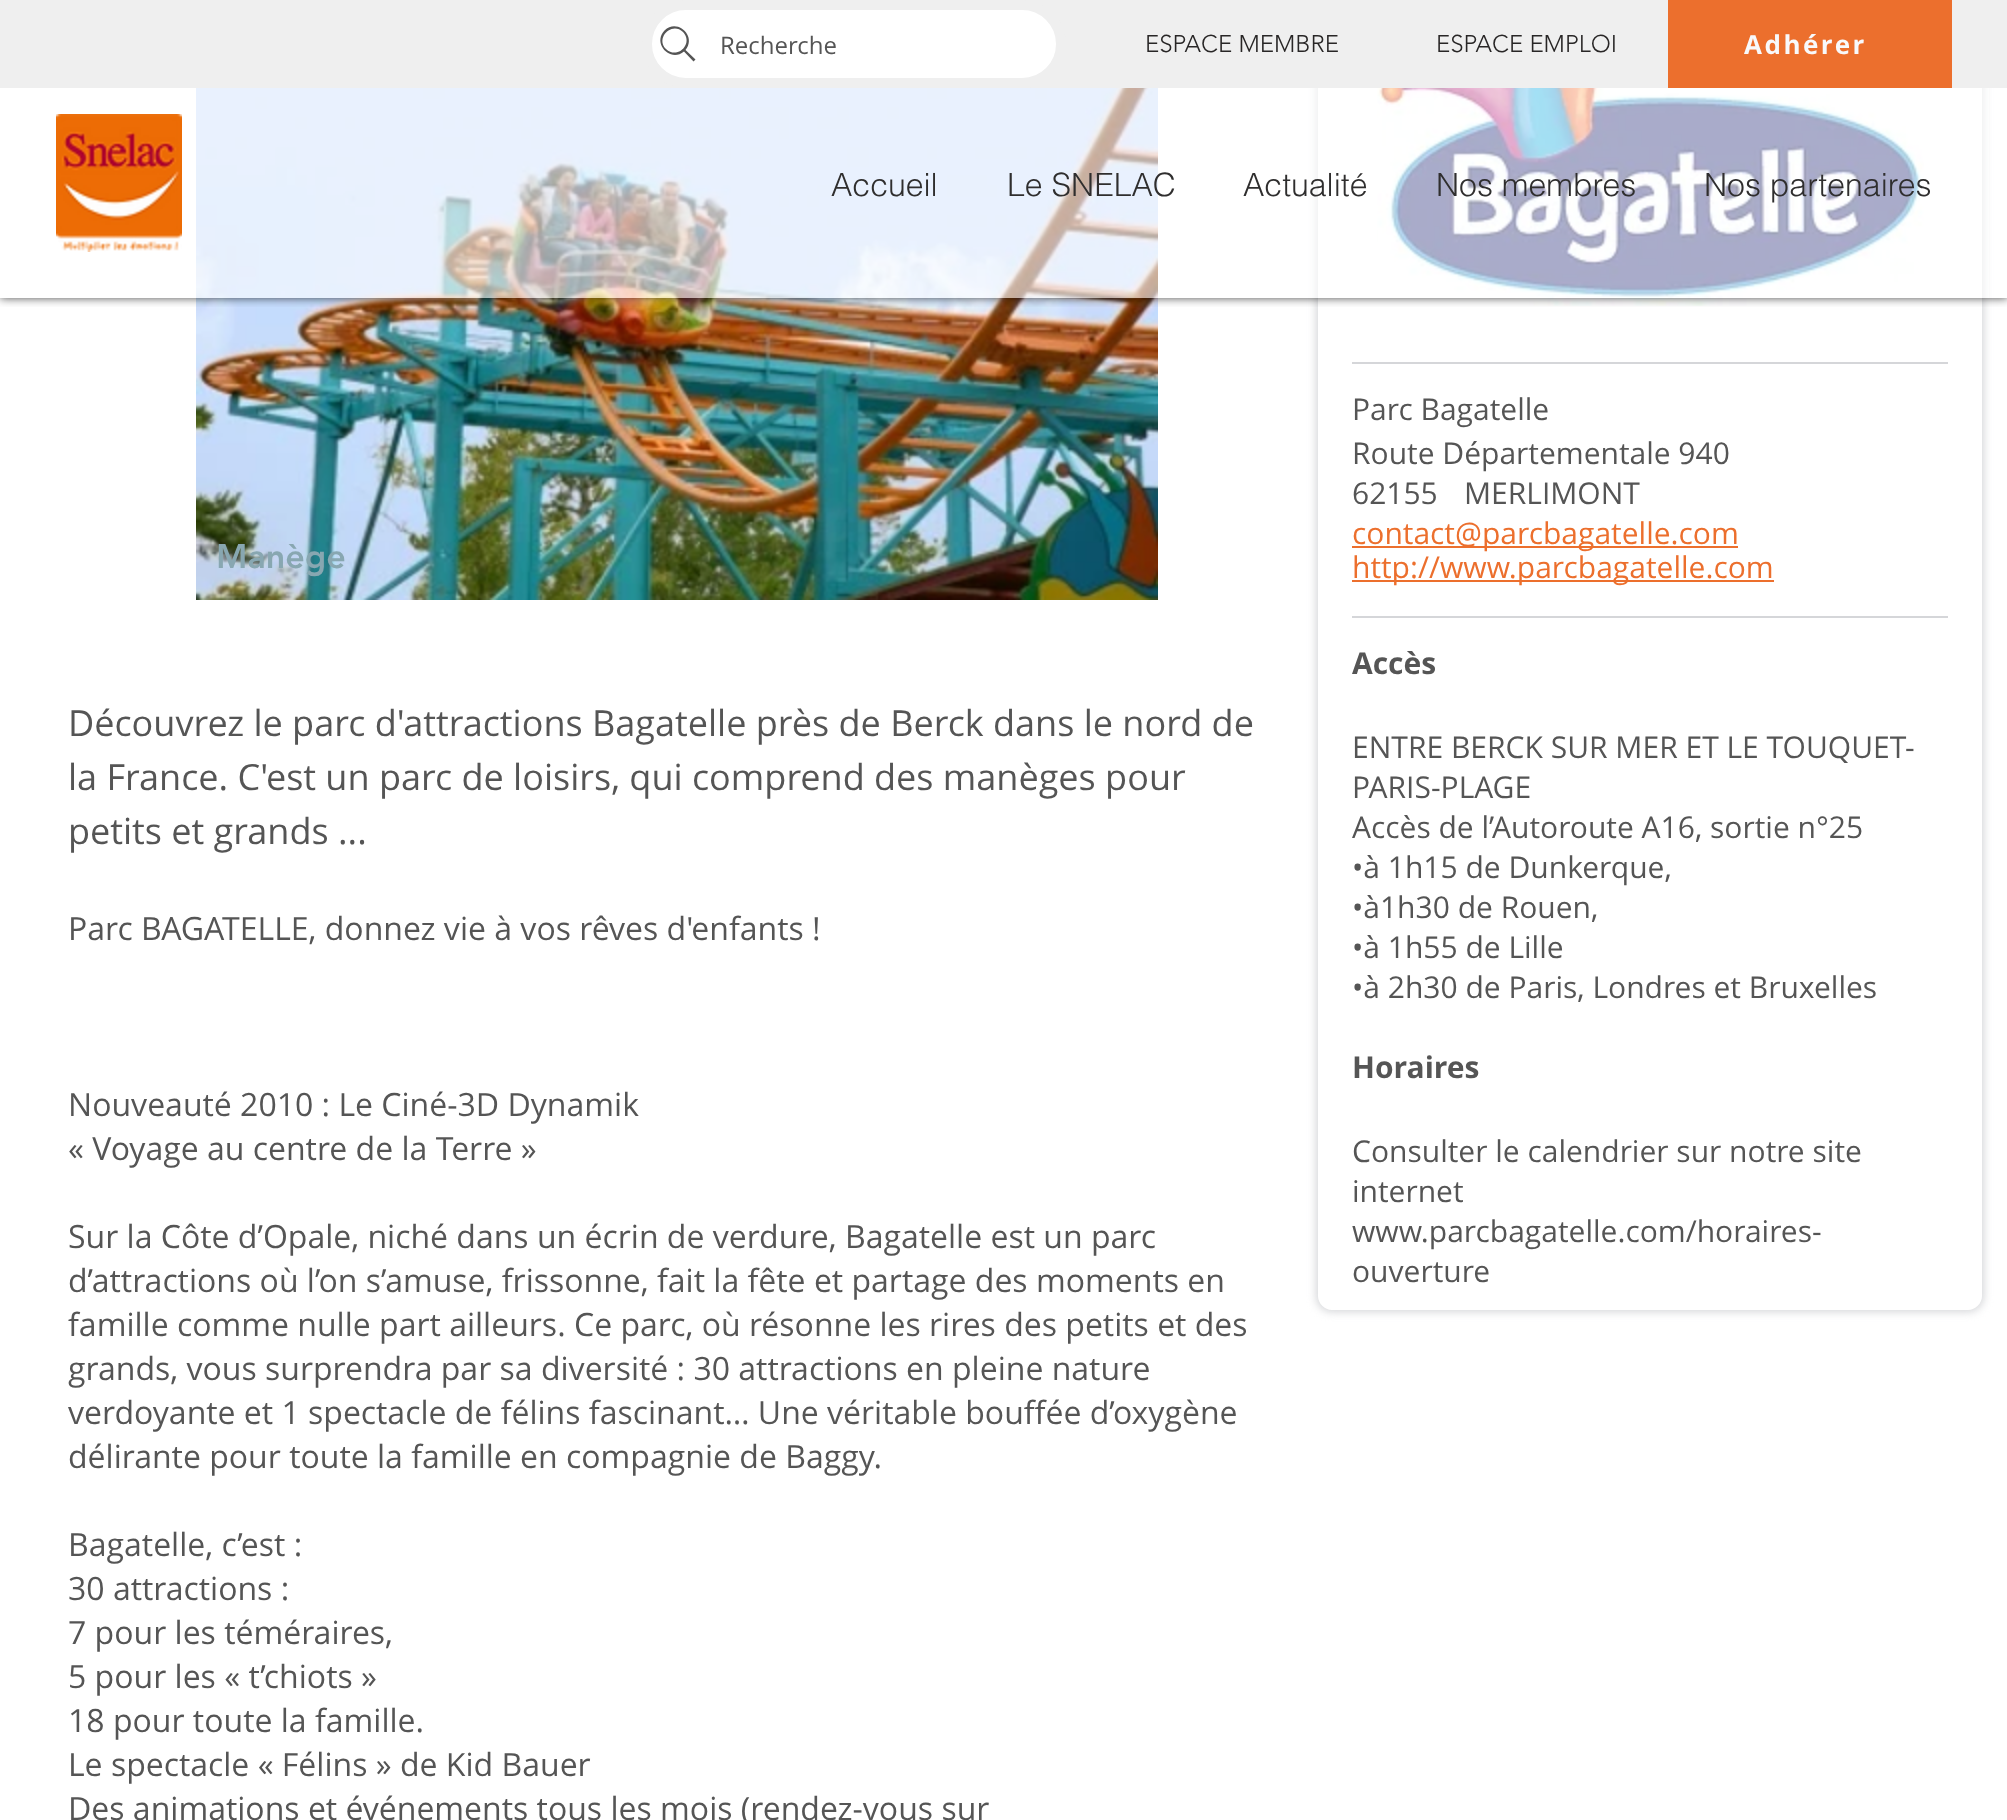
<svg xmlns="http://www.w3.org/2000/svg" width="2007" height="1820">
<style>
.a{font:24px Open Sans;fill:#555}
.b{font:300 24px 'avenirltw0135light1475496';fill:#282626}
.c{font:bold 26px Open Sans;letter-spacing:2.5px;fill:#f8f9fb}
.d{font:300 32px helvetica;fill:#2f2e2e}
.e{font:900 34px 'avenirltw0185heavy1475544';fill:#88a7b1}
.f{font:30px Open Sans;fill:#555}
.g{font:30px Open Sans;fill:#ec6f2d}
.h{font:bold 30px Open Sans;fill:#555}
.i{font:36px Open Sans;fill:#555}
.j{font:32px Open Sans;fill:#555}
</style>
<defs>
<clipPath id="clip1"><path d="M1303 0h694v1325h-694zm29-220h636c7.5 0 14 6.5 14 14v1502c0 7.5-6.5 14-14 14h-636c-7.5 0-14-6.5-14-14v-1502c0-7.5 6.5-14 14-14z" clip-rule="evenodd"/></clipPath>
<clipPath id="clip2"><path d="M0 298h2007v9H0z"/></clipPath>
</defs>
<rect width="100%" height="100%" fill="#fff"/>
<image href="2.png" x="196" y="88" width="962" height="512"/>
<g clip-path="url(#clip1)">
<rect fill="#d5d6d9" filter="blur(4px)" x="1316" y="-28" width="668" height="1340" rx="16"/>
</g>
<image href="3.png" x="1377" y="88" width="547" height="218"/>
<g clip-path="url(#clip2)">
<path fill="#000000b3" filter="blur(5px)" d="M0 0h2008v298H0z"/>
</g>
<path fill="#ffffff99" d="M196 88h1793v210H196z"/>
<path fill="#efefef" d="M0 0h2007v88H0z"/>
<rect fill="#fff" stroke="#efefef" stroke-width="10" x="647" y="5" width="414" height="78" rx="39"/>
<path fill="#555" fill-rule="evenodd" d="M666 49c-11-11 6-28 17-17c11 11.5-5.5 28-17 17zm29.5 10.5l-10-9.5c11.5-13.5-8-32-21-19.5c-12.5 13 6 32.5 19.5 21l9.5 10z"/>
<path fill="#ec6f2d" d="M1668 0h284v88H1668z"/>
<image href="1.png" x="56" y="114" width="126" height="138"/>
<path fill="#d5d6d9" d="M1352 362h596v2H1352z"/>
<path fill="#ec6f2d" d="M1352 546h386v2H1352z"/>
<path fill="#ec6f2d" d="M1352 580h422v2H1352z"/>
<path fill="#d5d6d9" d="M1352 616h596v2H1352z"/>
<text class="a" x="720" y="54">Recherche</text>
<text class="b" x="1145" y="52">ESPACE MEMBRE</text>
<text class="b" x="1436" y="52">ESPACE EMPLOI</text>
<text class="c" x="1744" y="54">Adhérer</text>
<text class="d" x="831" y="196">Accueil</text>
<text class="d" x="1007" y="196">Le SNELAC</text>
<text class="d" x="1243" y="196">Actualité</text>
<text class="d" x="1436" y="196">Nos membres</text>
<text class="d" x="1704" y="196">Nos partenaires</text>
<text class="e" x="216" y="568">Manège</text>
<text class="f" x="1352" y="420">Parc Bagatelle</text>
<text class="f" x="1352" y="464">Route Départementale 940</text>
<text class="f" x="1352" y="504">62155</text>
<text class="f" x="1464" y="504">MERLIMONT</text>
<text class="g" x="1352" y="544">contact@parcbagatelle.com</text>
<text class="g" x="1352" y="578">http://www.parcbagatelle.com</text>
<text class="h" x="1352" y="674">Accès</text>
<text class="f" x="1352" y="758">ENTRE BERCK SUR MER ET LE TOUQUET-</text>
<text class="f" x="1352" y="798">PARIS-PLAGE</text>
<text class="f" x="1352" y="838">Accès de l’Autoroute A16, sortie n°25</text>
<text class="f" x="1352" y="878">•à 1h15 de Dunkerque,</text>
<text class="f" x="1352" y="918">•à1h30 de Rouen,</text>
<text class="f" x="1352" y="958">•à 1h55 de Lille</text>
<text class="f" x="1352" y="998">•à 2h30 de Paris, Londres et Bruxelles</text>
<text class="h" x="1352" y="1078">Horaires</text>
<text class="f" x="1352" y="1162">Consulter le calendrier sur notre site</text>
<text class="f" x="1352" y="1202">internet</text>
<text class="f" x="1352" y="1242">www.parcbagatelle.com/horaires-</text>
<text class="f" x="1352" y="1282">ouverture</text>
<text class="i" x="68" y="736">Découvrez le parc d'attractions Bagatelle près de Berck dans le nord de</text>
<text class="i" x="68" y="790">la France. C'est un parc de loisirs, qui comprend des manèges pour</text>
<text class="i" x="68" y="844">petits et grands ...</text>
<text class="j" x="68" y="940">Parc BAGATELLE, donnez vie à vos rêves d'enfants !</text>
<text class="j" x="68" y="1116">Nouveauté 2010 : Le Ciné-3D Dynamik</text>
<text class="j" x="68" y="1160">« Voyage au centre de la Terre »</text>
<text class="j" x="68" y="1248">Sur la Côte d’Opale, niché dans un écrin de verdure, Bagatelle est un parc</text>
<text class="j" x="68" y="1292">d’attractions où l’on s’amuse, frissonne, fait la fête et partage des moments en</text>
<text class="j" x="68" y="1336">famille comme nulle part ailleurs. Ce parc, où résonne les rires des petits et des</text>
<text class="j" x="68" y="1380">grands, vous surprendra par sa diversité : 30 attractions en pleine nature</text>
<text class="j" x="68" y="1424">verdoyante et 1 spectacle de félins fascinant… Une véritable bouffée d’oxygène</text>
<text class="j" x="68" y="1468">délirante pour toute la famille en compagnie de Baggy.</text>
<text class="j" x="68" y="1556">Bagatelle, c’est :</text>
<text class="j" x="68" y="1600">30 attractions :</text>
<text class="j" x="68" y="1644">7 pour les téméraires,</text>
<text class="j" x="68" y="1688">5 pour les « t’chiots »</text>
<text class="j" x="68" y="1732">18 pour toute la famille.</text>
<text class="j" x="68" y="1776">Le spectacle « Félins » de Kid Bauer</text>
<text class="j" x="68" y="1820">Des animations et événements tous les mois (rendez-vous sur</text>
</svg>
